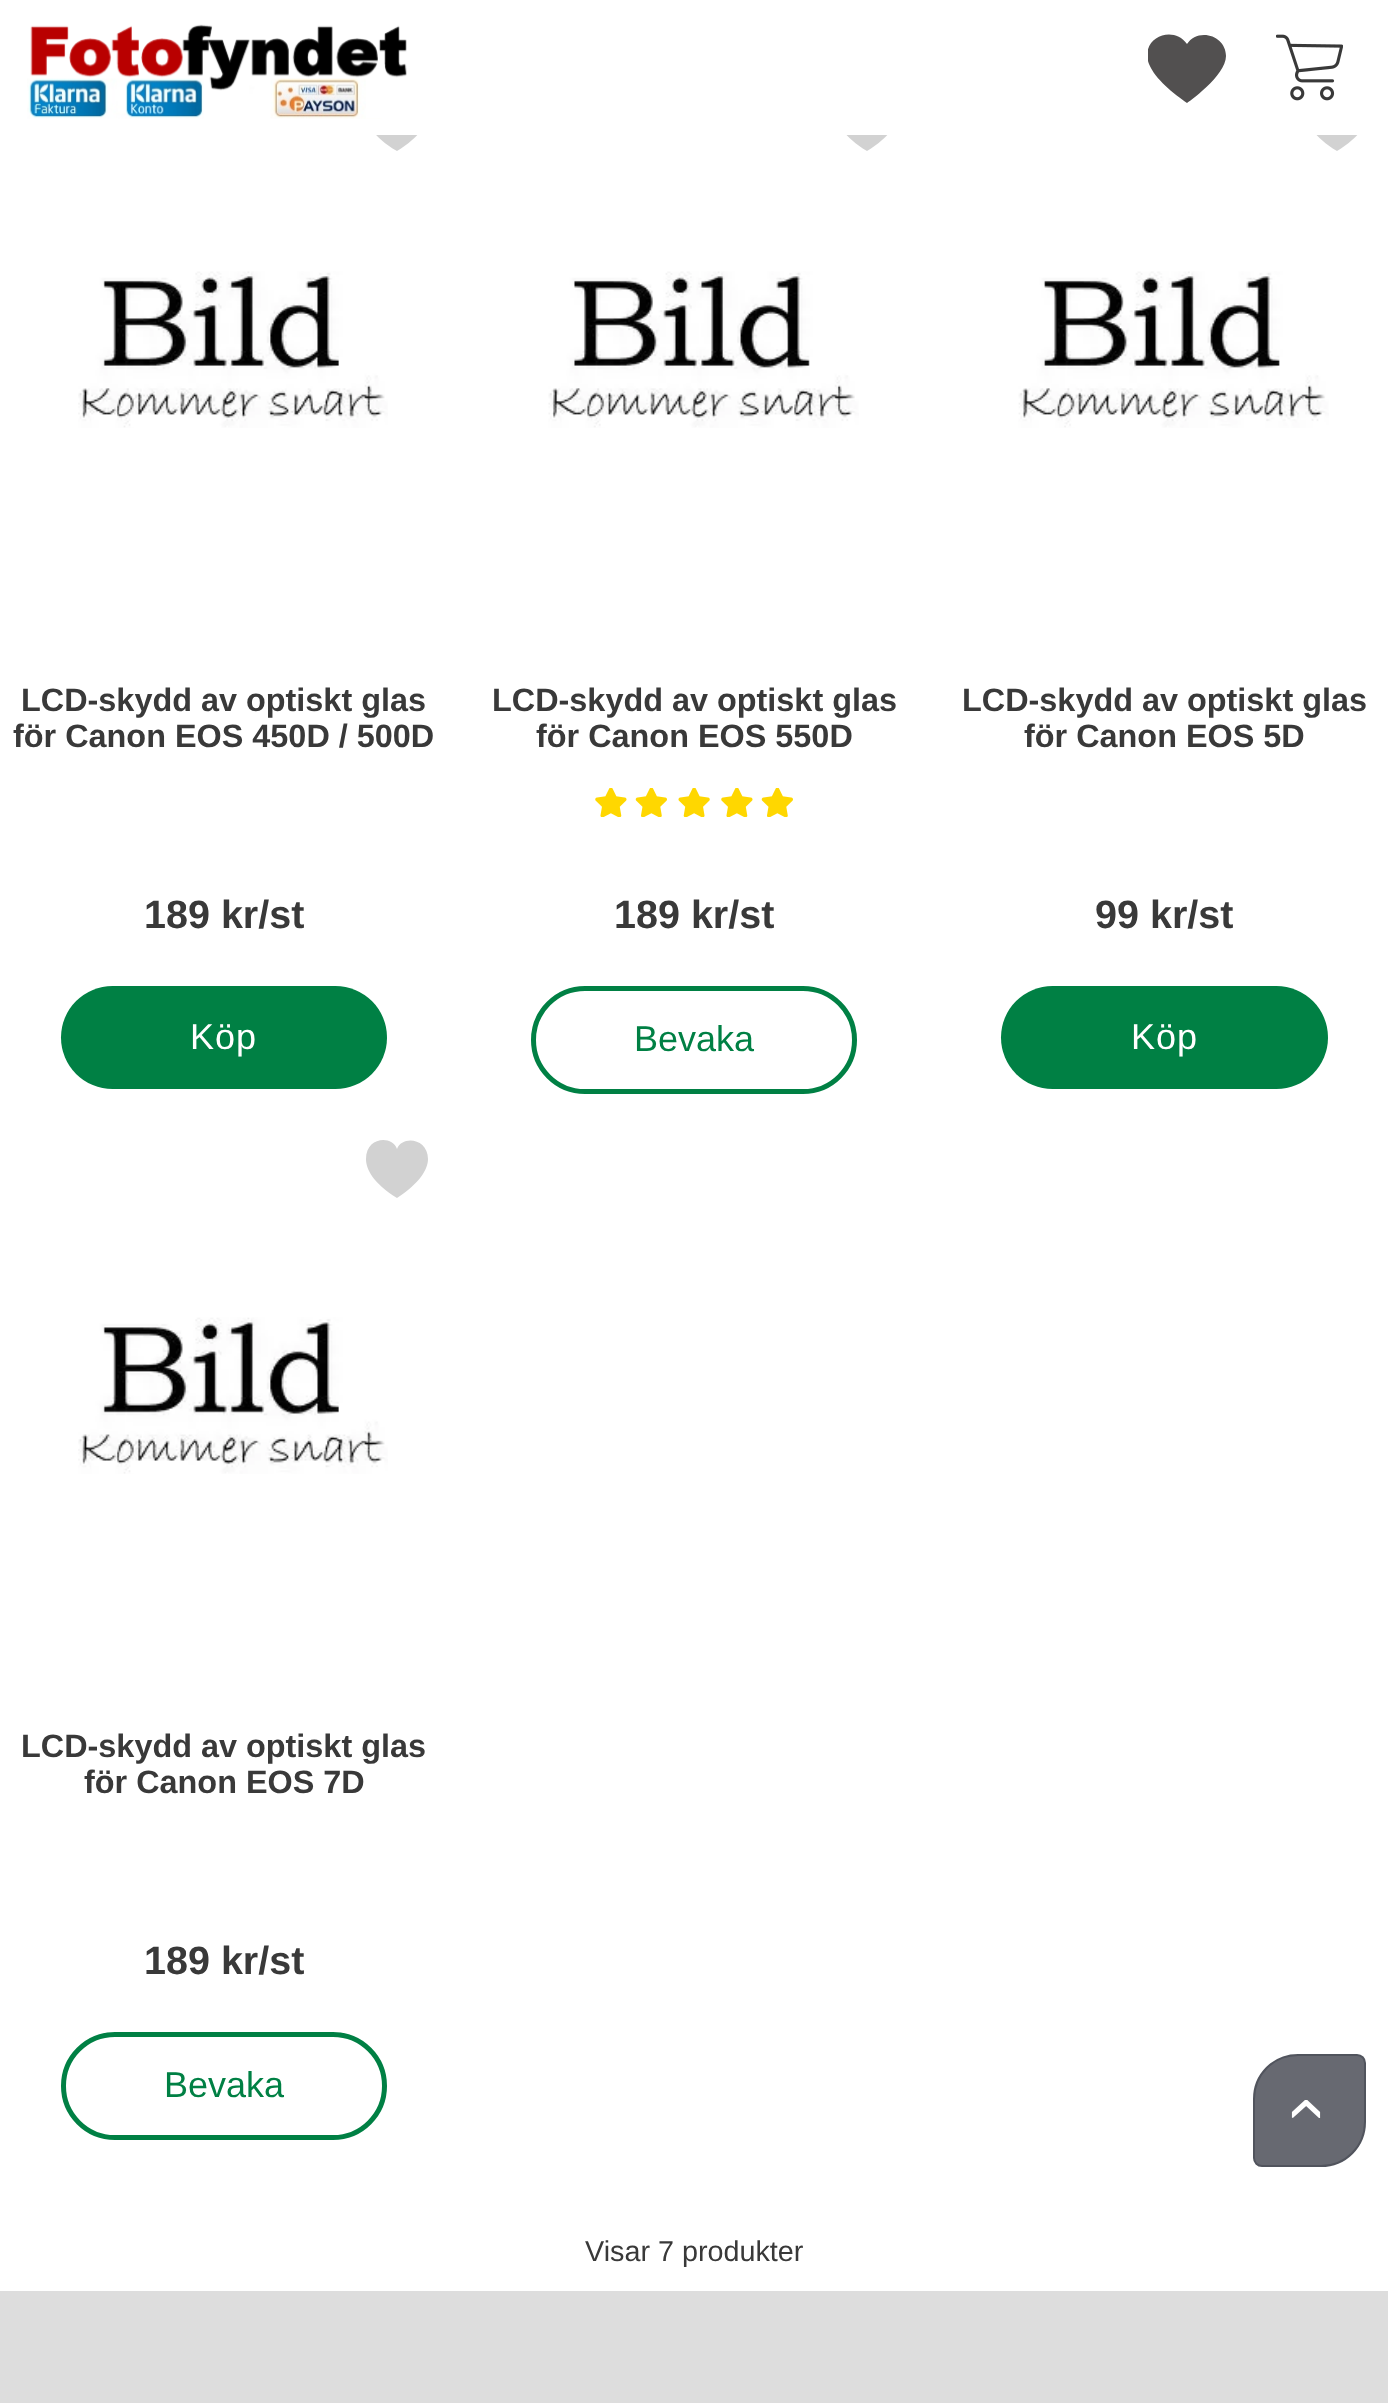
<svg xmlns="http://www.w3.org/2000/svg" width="1388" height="2403">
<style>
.a{font:bold 32.4px Liberation Sans;fill:#393939}
.b{font:bold 39.5px Liberation Sans;fill:#393939}
.c{font:36px Liberation Sans;letter-spacing:1px;fill:#fff}
.d{font:36px Liberation Sans;fill:#008044}
.e{font:28.75px Liberation Sans;fill:#393939}
.f{font:72px Liberation Sans;fill:#fff}
</style>
<defs>
<clipPath id="clip1"><path d="M1148 29h78v79H1148z"/></clipPath>
</defs>
<rect width="100%" height="100%" fill="#fff"/>
<path fill="#d2d2d2" d="M397 103c-5-14-31-12-31 9c0 11 7 25 31 39c23-14 31-28 31-39c0-21-26-23-31-9z"/>
<path fill="#d2d2d2" d="M867 103c-5-14-31-12-31 9c0 11 8 25 31 39c23-14 31-28 31-39c0-21-26-23-31-9z"/>
<path fill="#d2d2d2" d="M1337 103c-5-14-31-12-31 9c0 11 8 25 31 39c23-14 31-28 31-39c0-21-26-23-31-9z"/>
<path fill="#fff" d="M366 94h1002v41H366z"/>
<image href="1.png" x="27" y="24" width="380" height="95"/>
<g clip-path="url(#clip1)">
<path fill="#525050" d="M1204 35c12 0 22 9 22 21c0 20-39 47-39 47c-13-9-32-24-38-39c-10-26 24-40 38-20c4-6 10-9 17-9z"/>
</g>
<image href="2.png" x="1276" y="34" width="67" height="67"/>
<image href="3.png" x="78" y="271" width="310" height="157"/>
<rect fill="#008044" x="61" y="986" width="326" height="103" rx="51.5"/>
<image href="4.png" x="548" y="271" width="311" height="157"/>
<image href="5.png" x="595" y="788" width="32" height="29"/>
<image href="6.png" x="635" y="788" width="32" height="29"/>
<image href="7.png" x="678" y="788" width="32" height="29"/>
<image href="5.png" x="721" y="788" width="32" height="29"/>
<image href="6.png" x="761" y="788" width="32" height="29"/>
<rect fill="none" stroke="#008044" stroke-width="5" x="533.5" y="988.5" width="321" height="103" rx="51.5"/>
<image href="8.png" x="1018" y="271" width="311" height="157"/>
<rect fill="#008044" x="1001" y="986" width="327" height="103" rx="51.5"/>
<path fill="#d2d2d2" d="M397 1149c-5-14-31-12-31 10c0 10 7 24 31 39c23-15 31-29 31-39c0-21-26-24-31-10z"/>
<image href="9.png" x="78" y="1317" width="310" height="157"/>
<rect fill="none" stroke="#008044" stroke-width="5" x="63.5" y="2034.5" width="321" height="103" rx="51.5"/>
<path fill="#676971" stroke="#51545d" stroke-width="2" d="M1298 2055h59c4.5 0 8 3.5 8 8v59c0 24.5-19.5 44-44 44h-59c-4.5 0-8-3.5-8-8v-59c0-24.5 19.5-44 44-44z"/>
<path fill="#ddd" d="M0 2291h1388v112H0z"/>
<text class="a" x="21" y="711">LCD-skydd av optiskt glas</text>
<text class="a" x="13" y="747">för Canon EOS 450D / 500D</text>
<text class="b" x="144" y="928">189 kr/st</text>
<text class="c" x="190" y="1049">Köp</text>
<text class="a" x="492" y="711">LCD-skydd av optiskt glas</text>
<text class="a" x="536" y="747">för Canon EOS 550D</text>
<text class="b" x="614" y="928">189 kr/st</text>
<text class="d" x="634" y="1051">Bevaka</text>
<text class="a" x="962" y="711">LCD-skydd av optiskt glas</text>
<text class="a" x="1024" y="747">för Canon EOS 5D</text>
<text class="b" x="1095" y="928">99 kr/st</text>
<text class="c" x="1131" y="1049">Köp</text>
<text class="a" x="21" y="1757">LCD-skydd av optiskt glas</text>
<text class="a" x="84" y="1793">för Canon EOS 7D</text>
<text class="b" x="144" y="1974">189 kr/st</text>
<text class="d" x="164" y="2097">Bevaka</text>
<text class="e" x="585" y="2261">Visar 7 produkter</text>
<text class="f" x="1325" y="2121" transform="rotate(-90 1325 2121)">›</text>
</svg>
